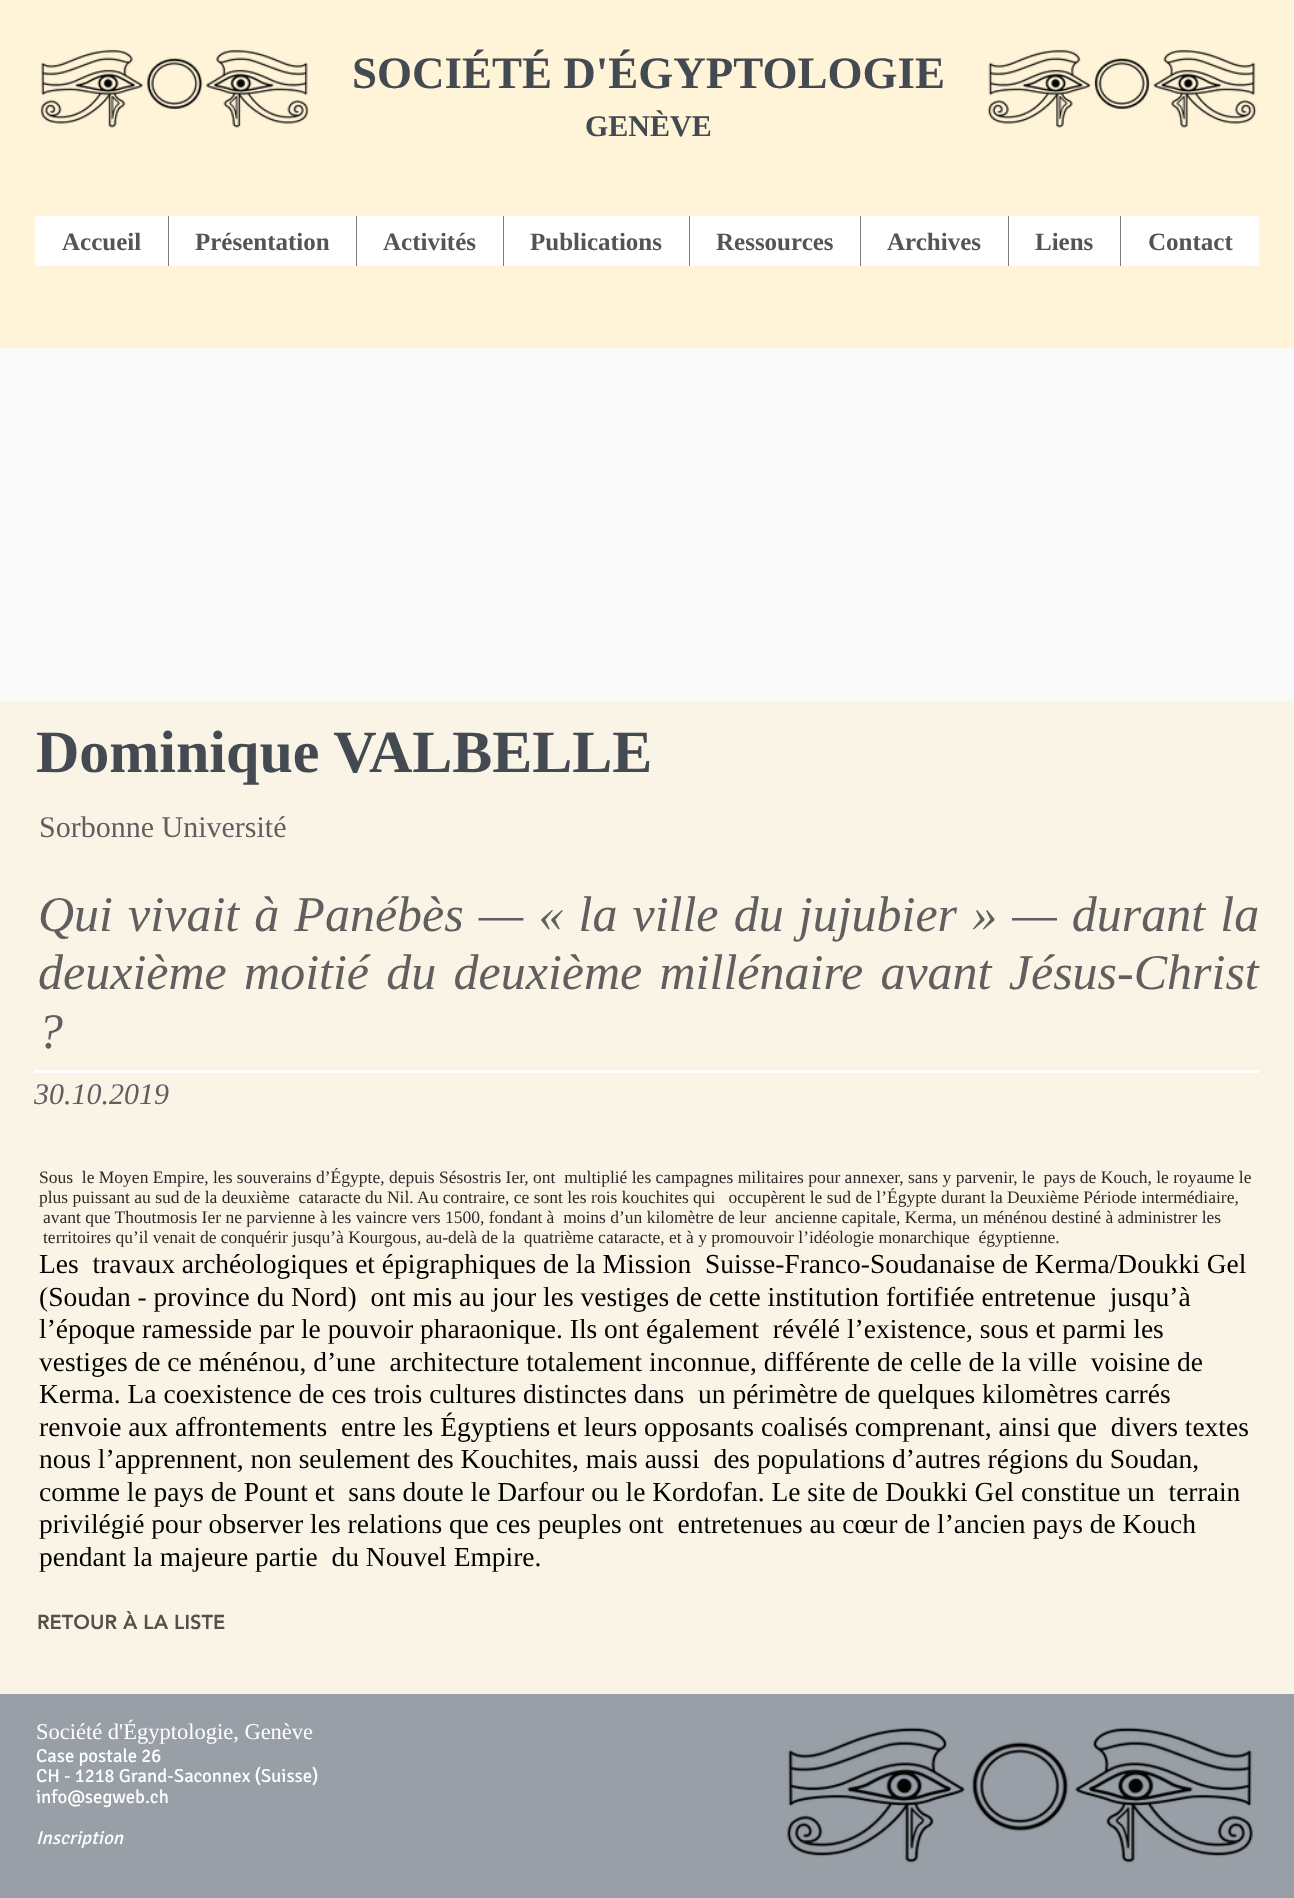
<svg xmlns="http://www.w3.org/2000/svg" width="1294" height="1898">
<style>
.a{font:bold 45px Liberation Serif;fill:#444a51}
.b{font:bold 30px Liberation Serif;fill:#444a51}
.c{font:bold 25px Liberation Serif;fill:#565451}
.d{font:bold 60px Liberation Serif;fill:#444a51}
.e{font:30px Liberation Serif;fill:#605e5e}
.f{font:italic 50px Liberation Serif;fill:#605e5e}
.g{font:italic 30px Liberation Serif;fill:#605e5e}
.h{font:17.5px Liberation Serif;fill:#2b2a28}
.i{font:27.5px Liberation Serif;fill:#000}
.j{font:900 20px 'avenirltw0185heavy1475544';fill:#594e48}
.k{font:22.5px Liberation Serif;fill:#fff}
.l{font:18.75px Signika;fill:#fff}
.m{font:italic 18.75px Signika;fill:#fff}
</style>
<rect width="100%" height="100%" fill="#faf4e6"/>
<path fill="#fff4d8" d="M0 0h1294v348H0z"/>
<image href="1.png" x="40" y="49" width="269" height="79"/>
<image href="2.png" x="987" y="49" width="270" height="79"/>
<path fill="#fff" d="M35 216h1224v50H35z"/>
<path fill="#827e7a" d="M168 216h1v50H168z"/>
<path fill="#827e7a" d="M356 216h1v50H356z"/>
<path fill="#827e7a" d="M503 216h1v50H503z"/>
<path fill="#827e7a" d="M689 216h1v50H689z"/>
<path fill="#827e7a" d="M860 216h1v50H860z"/>
<path fill="#827e7a" d="M1008 216h1v50H1008z"/>
<path fill="#827e7a" d="M1120 216h1v50H1120z"/>
<path fill="#fafafa" d="M0 348h1294v353H0z"/>
<path fill="#fff" d="M34 1070h1225v3H34z"/>
<path fill="#999fa6" d="M0 1694h1294v204H0z"/>
<image href="3.png" x="787" y="1727" width="466" height="136"/>
<text class="a" x="352" y="88">SOCIÉTÉ D'ÉGYPTOLOGIE</text>
<text class="b" x="585" y="136">GENÈVE</text>
<text class="c" x="62" y="250">Accueil</text>
<text class="c" x="195" y="250">Présentation</text>
<text class="c" x="383" y="250">Activités</text>
<text class="c" x="530" y="250">Publications</text>
<text class="c" x="716" y="250">Ressources</text>
<text class="c" x="887" y="250">Archives</text>
<text class="c" x="1035" y="250">Liens</text>
<text class="c" x="1148" y="250">Contact</text>
<text class="d" x="36" y="772">Dominique VALBELLE</text>
<text class="e" x="39" y="837">Sorbonne Université</text>
<text class="f" x="38" y="931" word-spacing="2.6">Qui vivait à Panébès — « la ville du jujubier » — durant la</text>
<text class="f" x="38" y="989" word-spacing="4.75">deuxième moitié du deuxième millénaire avant Jésus-Christ</text>
<text class="f" x="38" y="1048">?</text>
<text class="g" x="34" y="1104">30.10.2019</text>
<text class="h" xml:space="preserve" x="39" y="1183">Sous  le Moyen Empire, les souverains d’Égypte, depuis Sésostris Ier, ont  multiplié les campagnes militaires pour annexer, sans y parvenir, le  pays de Kouch, le royaume le</text>
<text class="h" xml:space="preserve" x="39" y="1203">plus puissant au sud de la deuxième  cataracte du Nil. Au contraire, ce sont les rois kouchites qui   occupèrent le sud de l’Égypte durant la Deuxième Période intermédiaire,</text>
<text class="h" xml:space="preserve" x="43" y="1223">avant que Thoutmosis Ier ne parvienne à les vaincre vers 1500, fondant à  moins d’un kilomètre de leur  ancienne capitale, Kerma, un ménénou destiné à administrer les</text>
<text class="h" xml:space="preserve" x="43" y="1243">territoires qu’il venait de conquérir jusqu’à Kourgous, au-delà de la  quatrième cataracte, et à y promouvoir l’idéologie monarchique  égyptienne.</text>
<text class="i" xml:space="preserve" x="39" y="1273">Les  travaux archéologiques et épigraphiques de la Mission  Suisse-Franco-Soudanaise de Kerma/Doukki Gel</text>
<text class="i" xml:space="preserve" x="39" y="1306">(Soudan - province du Nord)  ont mis au jour les vestiges de cette institution fortifiée entretenue  jusqu’à</text>
<text class="i" xml:space="preserve" x="39" y="1338">l’époque ramesside par le pouvoir pharaonique. Ils ont également  révélé l’existence, sous et parmi les</text>
<text class="i" xml:space="preserve" x="39" y="1371">vestiges de ce ménénou, d’une  architecture totalement inconnue, différente de celle de la ville  voisine de</text>
<text class="i" xml:space="preserve" x="39" y="1403">Kerma. La coexistence de ces trois cultures distinctes dans  un périmètre de quelques kilomètres carrés</text>
<text class="i" xml:space="preserve" x="39" y="1436">renvoie aux affrontements  entre les Égyptiens et leurs opposants coalisés comprenant, ainsi que  divers textes</text>
<text class="i" xml:space="preserve" x="39" y="1468">nous l’apprennent, non seulement des Kouchites, mais aussi  des populations d’autres régions du Soudan,</text>
<text class="i" xml:space="preserve" x="39" y="1501">comme le pays de Pount et  sans doute le Darfour ou le Kordofan. Le site de Doukki Gel constitue un  terrain</text>
<text class="i" xml:space="preserve" x="39" y="1533">privilégié pour observer les relations que ces peuples ont  entretenues au cœur de l’ancien pays de Kouch</text>
<text class="i" xml:space="preserve" x="39" y="1566">pendant la majeure partie  du Nouvel Empire.</text>
<text class="j" x="37" y="1629">RETOUR À LA LISTE</text>
<text class="k" x="36" y="1739">Société d'Égyptologie, Genève</text>
<text class="l" x="36" y="1762">Case postale 26</text>
<text class="l" x="36" y="1782">CH - 1218 Grand-Saconnex (Suisse)</text>
<text class="l" x="36" y="1803">info@segweb.ch</text>
<text class="m" x="36" y="1844">Inscription</text>
</svg>
